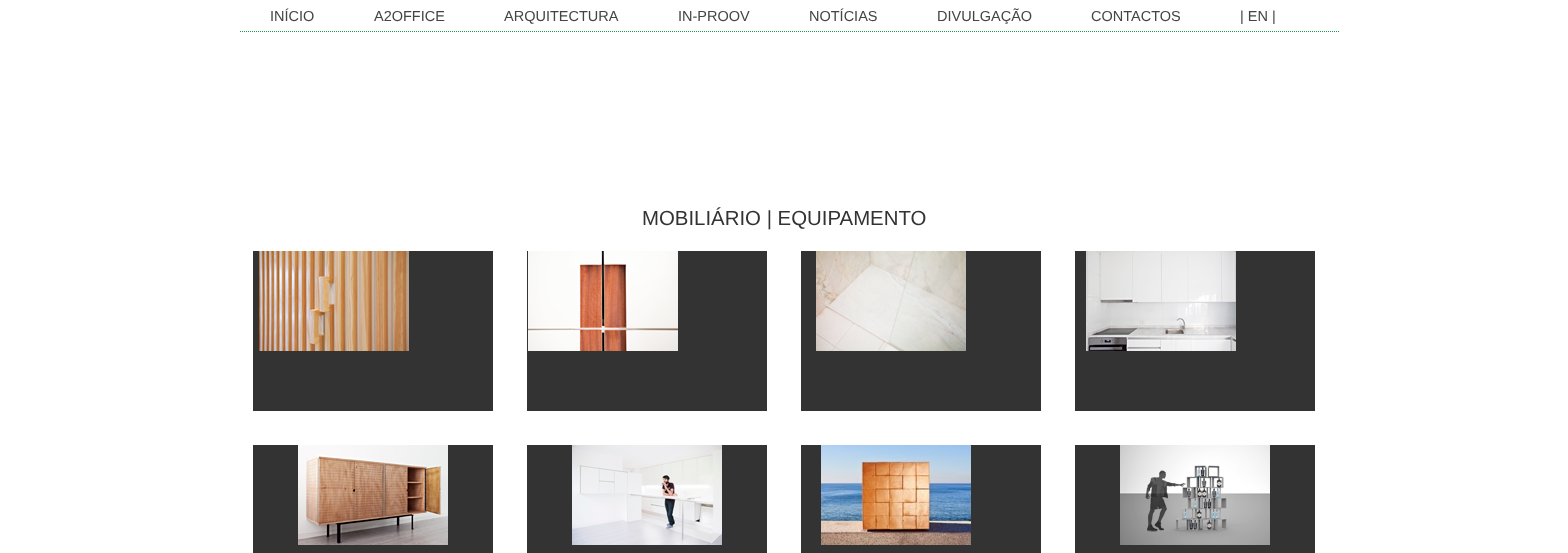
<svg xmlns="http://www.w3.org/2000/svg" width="1568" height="553">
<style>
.a{font:14.5px Liberation Sans;fill:#444}
.b{font:20.4px Liberation Sans;fill:#333}
</style>
<rect width="100%" height="100%" fill="#fff"/>
<path fill="none" stroke="#0f9d58" stroke-dasharray="1 1" d="M240 31.5h1100"/>
<path fill="#333" d="M253 251h240v160H253z"/>
<image href="1.png" x="259" y="251" width="150" height="100"/>
<path fill="#333" d="M527 251h240v160H527z"/>
<image href="2.png" x="528" y="251" width="150" height="100"/>
<path fill="#333" d="M801 251h240v160H801z"/>
<image href="3.png" x="816" y="251" width="150" height="100"/>
<path fill="#333" d="M1075 251h240v160H1075z"/>
<image href="4.png" x="1086" y="251" width="150" height="100"/>
<path fill="#333" d="M253 445h240v108H253z"/>
<image href="5.png" x="298" y="445" width="150" height="100"/>
<path fill="#333" d="M527 445h240v108H527z"/>
<image href="6.png" x="572" y="445" width="150" height="100"/>
<path fill="#333" d="M801 445h240v108H801z"/>
<image href="7.png" x="821" y="445" width="150" height="100"/>
<path fill="#333" d="M1075 445h240v108H1075z"/>
<image href="8.png" x="1120" y="445" width="150" height="100"/>
<text class="a" x="270" y="21">INÍCIO</text>
<text class="a" x="374" y="21">A2OFFICE</text>
<text class="a" x="504" y="21">ARQUITECTURA</text>
<text class="a" x="678" y="21">IN-PROOV</text>
<text class="a" x="809" y="21">NOTÍCIAS</text>
<text class="a" x="937" y="21">DIVULGAÇÃO</text>
<text class="a" x="1091" y="21">CONTACTOS</text>
<text class="a" x="1240" y="21">| EN |</text>
<text class="b" x="642" y="225">MOBILIÁRIO | EQUIPAMENTO</text>
</svg>
